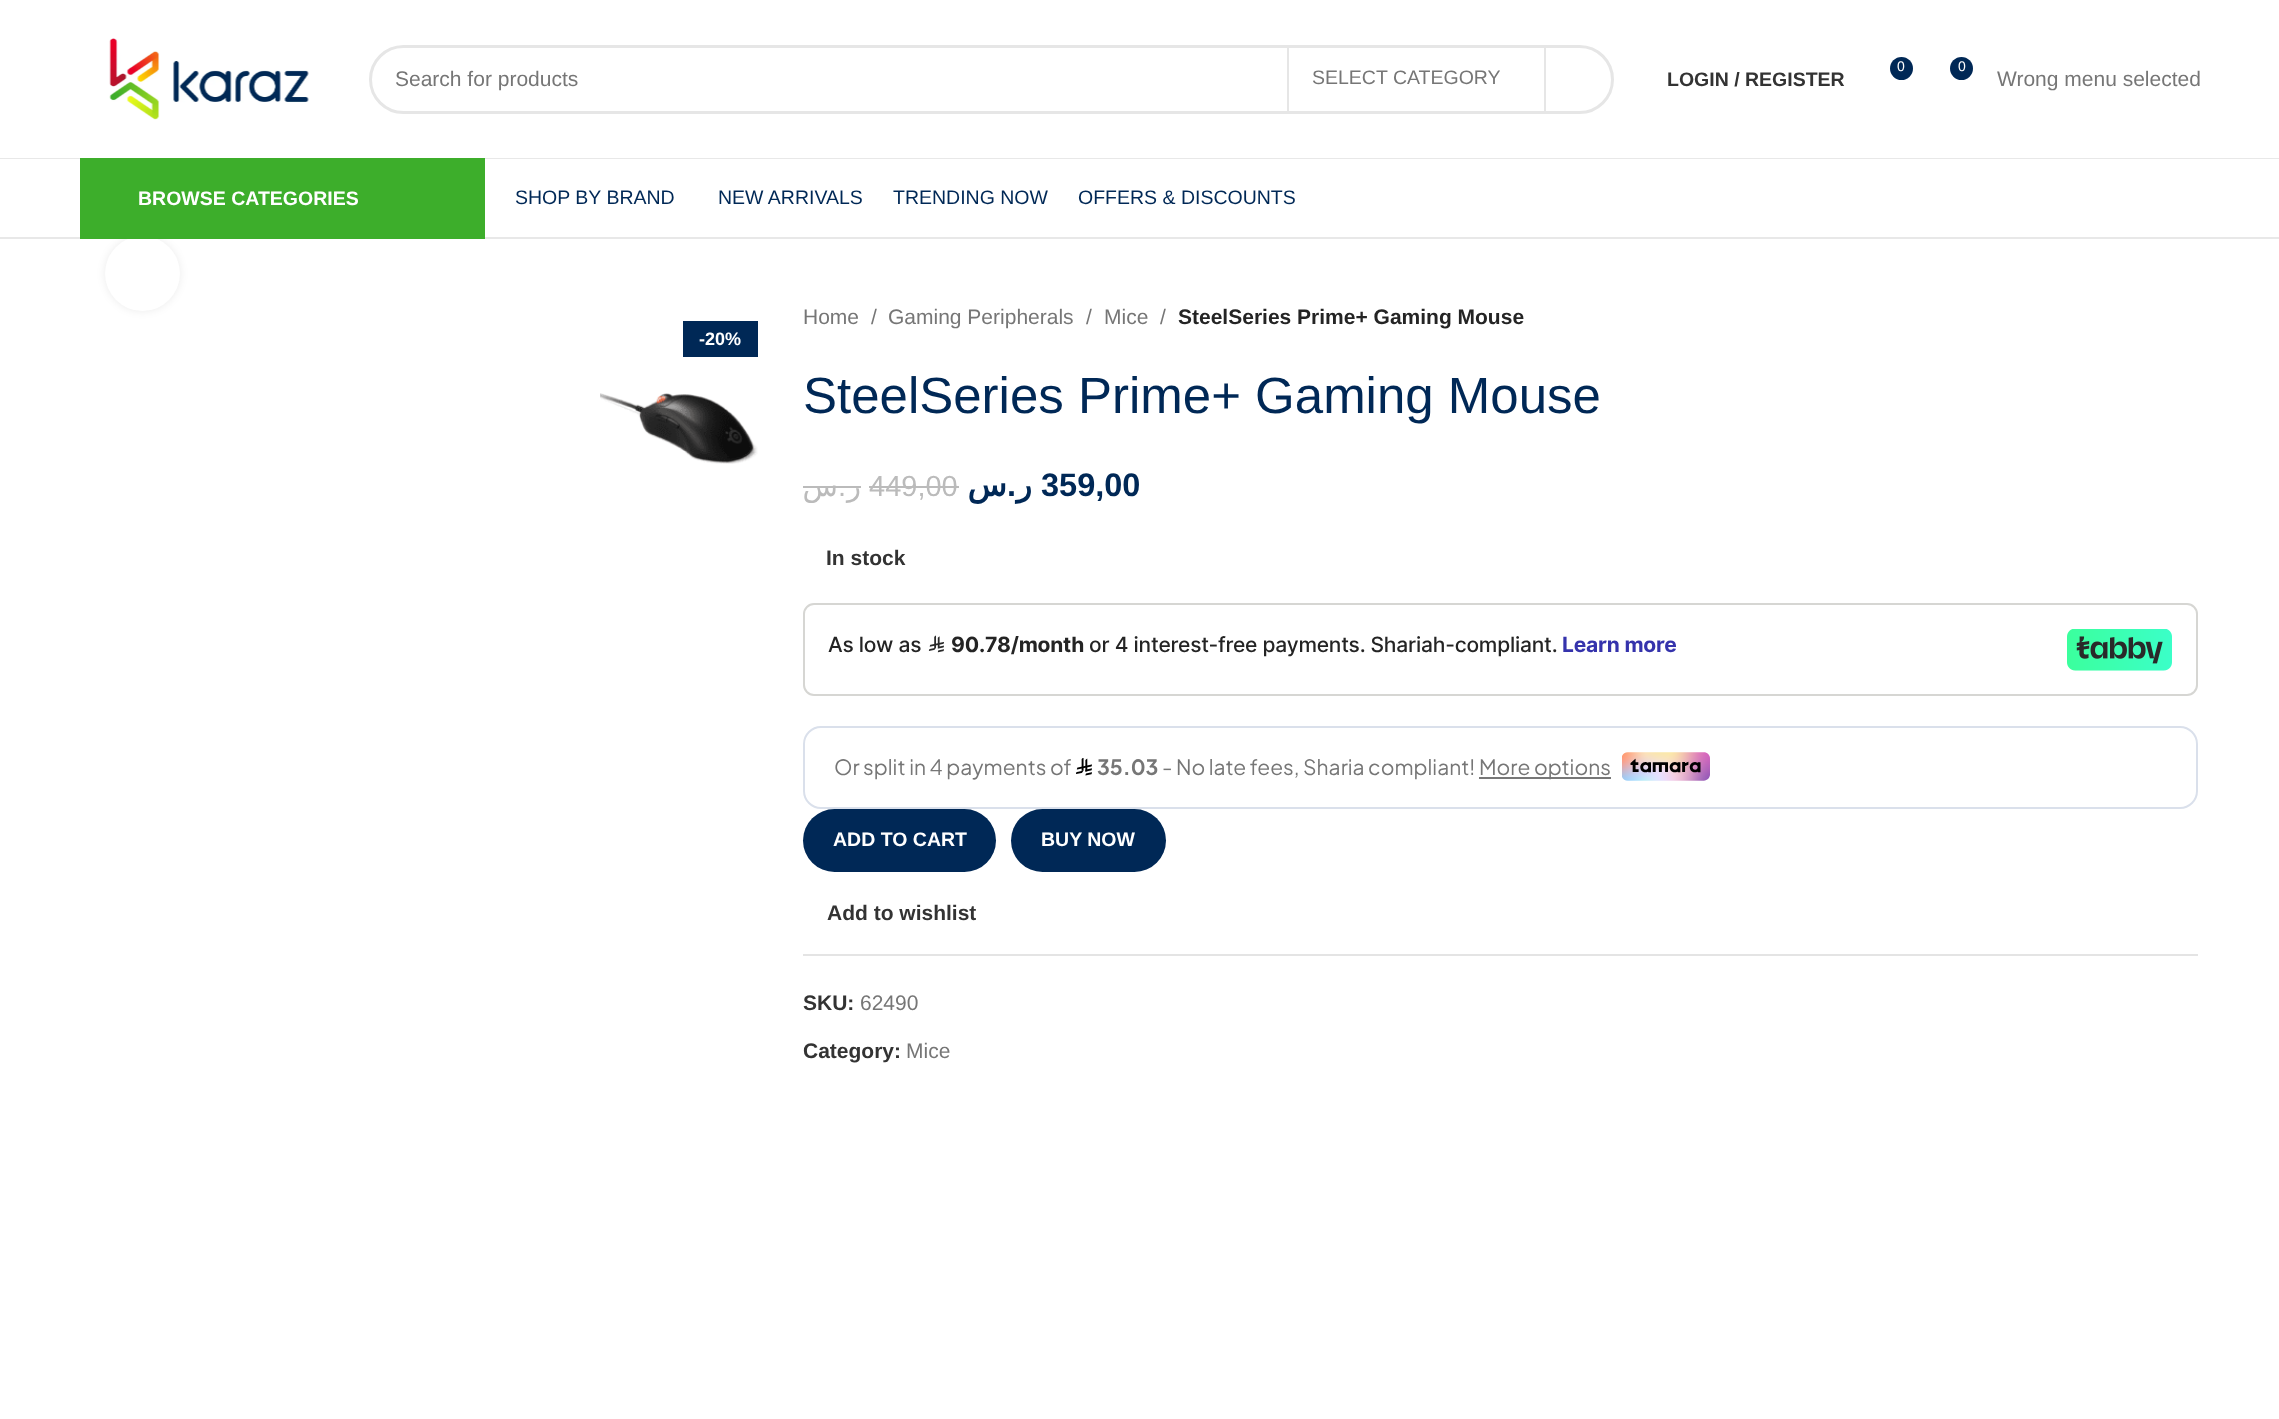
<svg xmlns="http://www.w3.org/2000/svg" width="2279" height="1419">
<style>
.a{font:21px Liberation Sans;fill:#767676}
.b{font:19.5px Liberation Sans;fill:#767676}
.c{font:14px Liberation Sans;fill:#fff}
.d{font:bold 19.5px Liberation Sans;fill:#333}
.e{font:bold 19.5px Liberation Sans;fill:#fff}
.f{font:19.5px Liberation Sans;fill:#002856}
.g{font:bold 18px Liberation Sans;fill:#fff}
.h{font:bold 21px Liberation Sans;fill:#242424}
.i{font:51px Liberation Sans;fill:#002856}
.j{font:29px DejaVu Sans;direction:rtl;fill:#bbb}
.k{font:29px Liberation Sans;direction:rtl;fill:#bbb}
.l{font:29px Liberation Sans;fill:#bbb}
.m{font:bold 32.5px DejaVu Sans;direction:rtl;fill:#002856}
.n{font:bold 32.5px Liberation Sans;direction:rtl;fill:#002856}
.o{font:bold 32.5px Liberation Sans;fill:#002856}
.p{font:bold 21px Liberation Sans;fill:#333}
.q{font:500 21px Inter;letter-spacing:-0.2px;fill:#242424}
.r{font:bold 21px Inter;letter-spacing:-0.2px;fill:#242424}
.s{font:bold 21px Inter;letter-spacing:-0.2px;fill:#3533ac}
.t{font:21px Plus Jakarta Sans;fill:#767676}
.u{font:bold 21px Plus Jakarta Sans;fill:#767676}
</style>
<rect width="100%" height="100%" fill="#fff"/>
<path fill="#e8e8e8" d="M0 158h2279v1H0z"/>
<image href="1.png" x="109" y="38" width="200" height="82"/>
<rect fill="none" stroke="#e6e6e6" stroke-width="3" x="370.5" y="46.5" width="1242" height="66" rx="33"/>
<path fill="#e6e6e6" d="M1544 48h2v63H1544z"/>
<path fill="#e6e6e6" d="M1287 48h2v63H1287z"/>
<circle fill="#002856" cx="1901.5" cy="68.5" r="11.5"/>
<circle fill="#002856" cx="1961.5" cy="68.5" r="11.5"/>
<rect fill="#00000014" filter="blur(4px)" x="105" y="236" width="75" height="75" rx="37.5"/>
<circle fill="#fff" cx="142.5" cy="273.5" r="37.5"/>
<path fill="#fff" d="M123 232h39v5H123z"/>
<path fill="#e8e8e8" d="M0 237h2279v2H0z"/>
<path fill="#3dae2b" d="M80 158h405v81H80z"/>
<path fill="#002856" d="M683 321h75v36H683z"/>
<image href="2.png" x="600" y="393" width="158" height="71"/>
<path fill="#bbb" d="M869 486h90v2H869z"/>
<path fill="#bbb" d="M803 486h58v2H803z"/>
<rect fill="none" stroke="#d6d6d3" stroke-width="2" x="804" y="604" width="1393" height="91" rx="10"/>
<image href="3.png" x="928" y="635" width="16" height="18"/>
<image href="4.png" x="2067" y="629" width="105" height="42"/>
<rect fill="none" stroke="#dae0eb" stroke-width="2" x="804" y="727" width="1393" height="81" rx="17"/>
<image href="5.png" x="1076" y="758" width="16" height="18"/>
<path fill="#777" d="M1479 777h132v2H1479z"/>
<image href="6.png" x="1622" y="752" width="88" height="29"/>
<rect fill="#002856" x="803" y="809" width="193" height="63" rx="31.5"/>
<rect fill="#002856" x="1011" y="809" width="155" height="63" rx="31.5"/>
<path fill="#e4e4e4" d="M803 954h1395v2H803z"/>
<text class="a" x="395" y="86">Search for products</text>
<text class="b" x="1312" y="84">SELECT CATEGORY</text>
<text class="c" x="1897" y="71">0</text>
<text class="c" x="1958" y="71">0</text>
<text class="d" x="1667" y="86">LOGIN / REGISTER</text>
<text class="a" x="1997" y="86">Wrong menu selected</text>
<text class="e" x="138" y="205">BROWSE CATEGORIES</text>
<text class="f" x="515" y="204">SHOP BY BRAND</text>
<text class="f" x="718" y="204">NEW ARRIVALS</text>
<text class="f" x="893" y="204">TRENDING NOW</text>
<text class="f" x="1078" y="204">OFFERS &amp; DISCOUNTS</text>
<text class="g" x="699" y="345">-20%</text>
<text class="a" x="803" y="324">Home</text>
<text class="a" x="871" y="324">/</text>
<text class="a" x="888" y="324">Gaming Peripherals</text>
<text class="a" x="1086" y="324">/</text>
<text class="a" x="1104" y="324">Mice</text>
<text class="a" x="1160" y="324">/</text>
<text class="h" x="1178" y="324">SteelSeries Prime+ Gaming Mouse</text>
<text class="i" x="803" y="413">SteelSeries Prime+ Gaming Mouse</text>
<text class="j" x="838" y="496">س</text>
<text class="k" x="846" y="496">.</text>
<text class="j" x="861" y="496">ر</text>
<text class="l" x="869" y="496">449,00</text>
<text class="m" x="1007" y="496">س</text>
<text class="n" x="1016" y="496">.</text>
<text class="m" x="1032" y="496">ر</text>
<text class="o" x="1041" y="496">359,00</text>
<text class="p" x="826" y="565">In stock</text>
<text class="q" x="828" y="652">As low as</text>
<text class="r" x="951" y="652">90.78/month</text>
<text class="q" x="1089" y="652">or 4 interest-free payments. Shariah-compliant.</text>
<text class="s" x="1562" y="652">Learn more</text>
<text class="t" x="834" y="775">Or split in 4 payments of</text>
<text class="u" x="1097" y="775">35.03</text>
<text class="t" x="1162" y="775">- No late fees, Sharia compliant!</text>
<text class="t" x="1479" y="775">More options</text>
<text class="e" x="833" y="846">ADD TO CART</text>
<text class="e" x="1041" y="846">BUY NOW</text>
<text class="p" x="827" y="920">Add to wishlist</text>
<text class="p" x="803" y="1010">SKU:</text>
<text class="a" x="860" y="1010">62490</text>
<text class="p" x="803" y="1058">Category:</text>
<text class="a" x="906" y="1058">Mice</text>
</svg>
